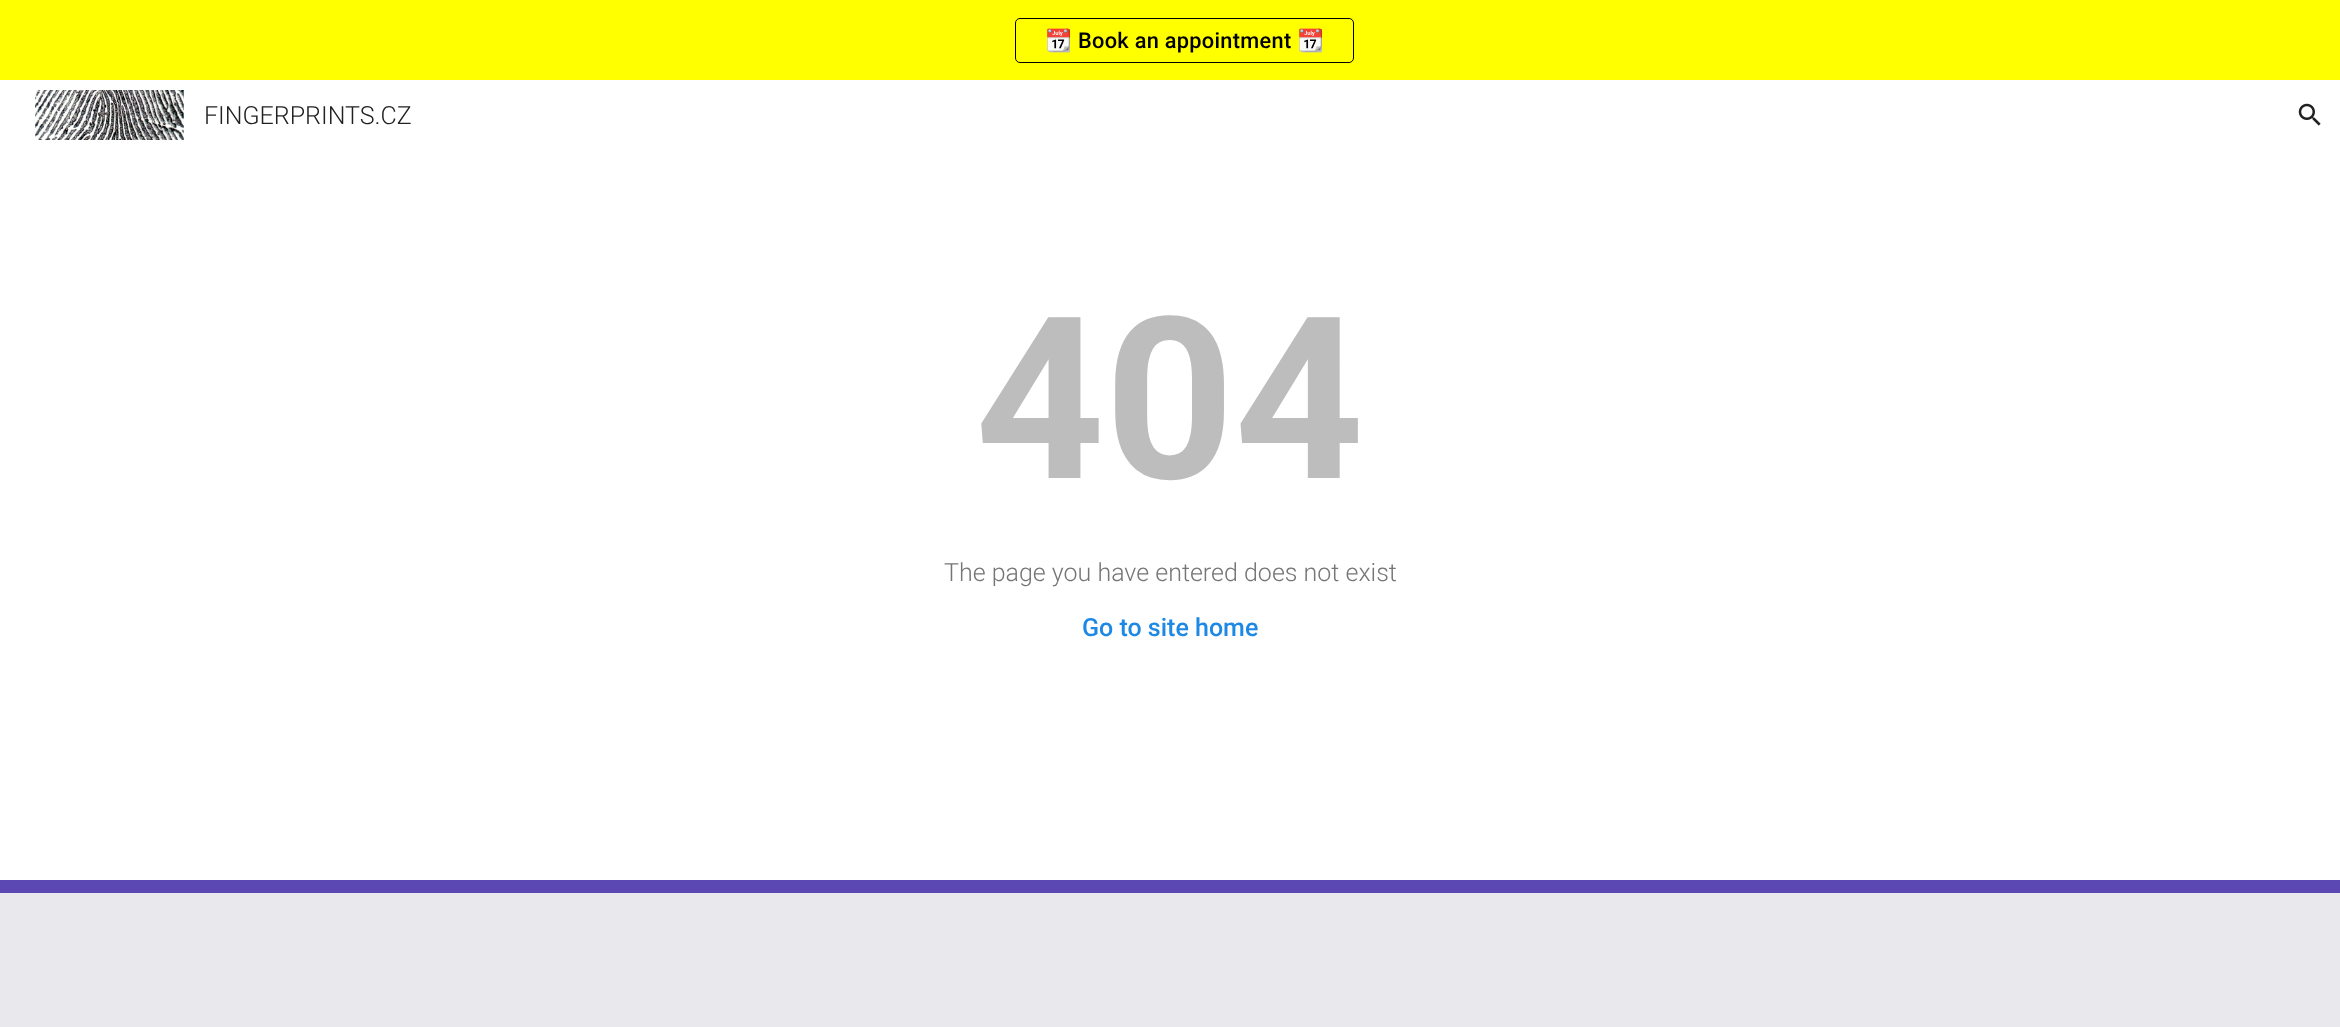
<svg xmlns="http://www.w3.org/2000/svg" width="2340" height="1027">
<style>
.a{font:21.75px Noto Color Emoji;letter-spacing:0.3px;fill:#000}
.b{font:500 21.75px Roboto;letter-spacing:0.3px;fill:#000}
.c{font:300 25px Roboto;fill:#212121}
.d{font:bold 226px Roboto;fill:#bdbdbd}
.e{font:300 25px Roboto;fill:#757575}
.f{font:500 25px Roboto;fill:#1e88e5}
</style>
<rect width="100%" height="100%" fill="#e9e8ed"/>
<path fill="#ff0" d="M0 0h2340v80H0z"/>
<rect fill="none" stroke="#000" x="1015.5" y="18.5" width="338" height="44" rx="4.5"/>
<path fill="#fff" d="M0 80h2340v800H0z"/>
<image href="1.png" x="35" y="90" width="149" height="50"/>
<image href="2.png" x="2298" y="103" width="23" height="23"/>
<path fill="#5b48b2" d="M0 880h2340v13H0z"/>
<text class="a" x="1045" y="48">📆</text>
<text class="b" x="1078" y="48">Book an appointment</text>
<text class="a" x="1297" y="48">📆</text>
<text class="c" x="204" y="124">FINGERPRINTS.CZ</text>
<text class="d" x="975" y="478">404</text>
<text class="e" x="944" y="581">The page you have entered does not exist</text>
<text class="f" x="1082" y="636">Go to site home</text>
</svg>
